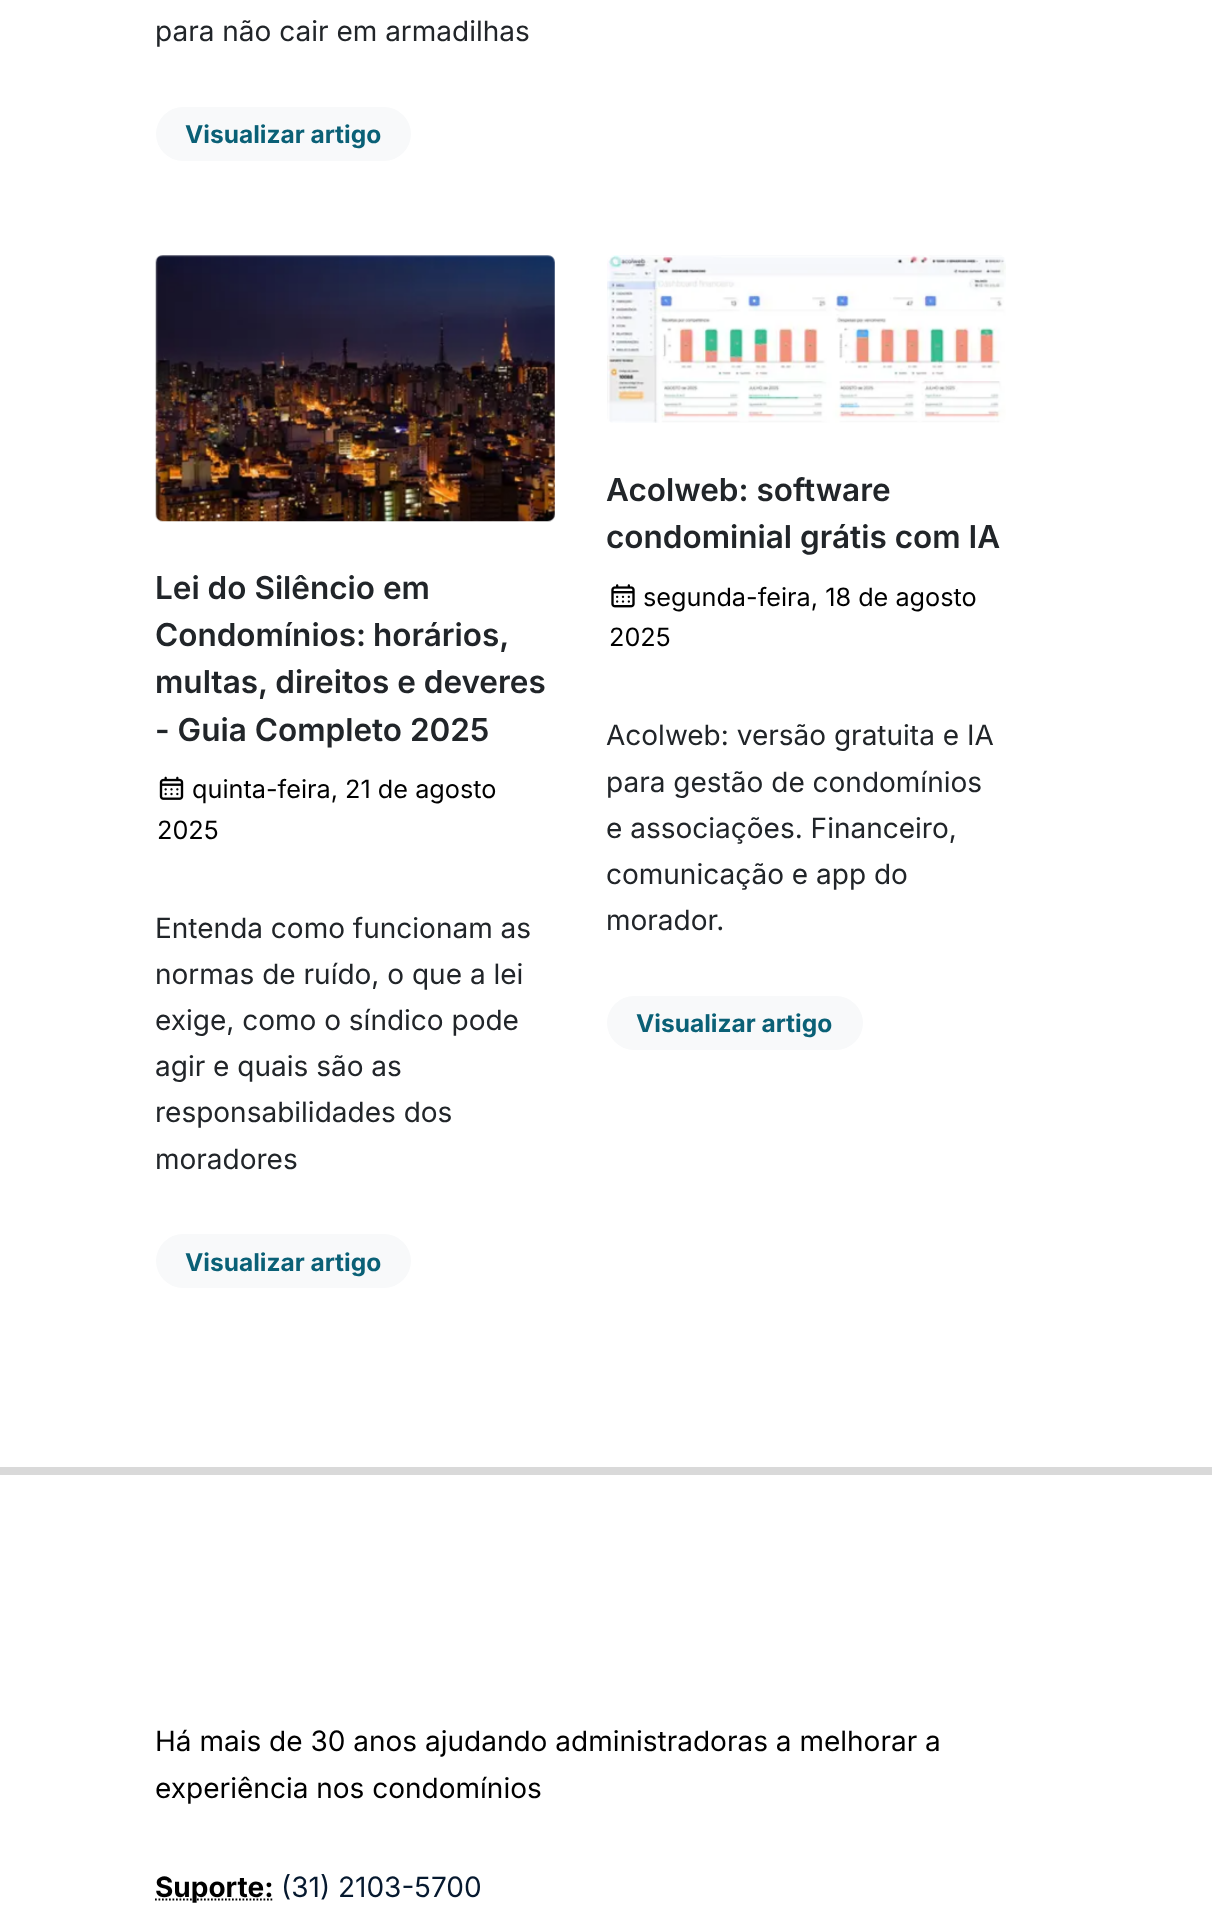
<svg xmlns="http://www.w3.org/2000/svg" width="1212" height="1918">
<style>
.a{font:28px Inter;fill:#212529}
.b{font:bold 24.5px Inter;fill:#0a6076}
.c{font:600 31.5px Inter;fill:#212529}
.d{font:25.25px Inter;fill:#000}
.e{font:28px Inter;fill:#000}
.f{font:bold 28px Inter;fill:#000}
.g{font:28px Inter;fill:#06192f}
</style>
<rect width="100%" height="100%" fill="#fff"/>
<rect fill="#f8f9fa" x="156" y="107" width="255" height="54" rx="27"/>
<image href="1.png" x="155" y="255" width="400" height="267"/>
<image href="2.png" x="159" y="776" width="25" height="24"/>
<rect fill="#f8f9fa" x="156" y="1234" width="255" height="54" rx="27"/>
<image href="3.png" x="607" y="255" width="399" height="168"/>
<image href="4.png" x="611" y="584" width="24" height="24"/>
<rect fill="#f8f9fa" x="607" y="996" width="256" height="54" rx="27"/>
<path fill="#d9d9d9" d="M0 1467h1212v8H0z"/>
<path fill="none" stroke="#000" stroke-width="1.8" stroke-dasharray="1.75 1.75" d="M155 1899.5h118.5"/>
<text class="a" x="155" y="41">para não cair em armadilhas</text>
<text class="b" x="185" y="143">Visualizar artigo</text>
<text class="c" x="155" y="599">Lei do Silêncio em</text>
<text class="c" x="155" y="646" word-spacing="-1">Condomínios: horários,</text>
<text class="c" x="155" y="693">multas, direitos e deveres</text>
<text class="c" x="155" y="741">- Guia Completo 2025</text>
<text class="d" x="192" y="798">quinta-feira, 21 de agosto</text>
<text class="d" x="157" y="839">2025</text>
<text class="a" x="155" y="938">Entenda como funcionam as</text>
<text class="a" x="155" y="984">normas de ruído, o que a lei</text>
<text class="a" x="155" y="1030">exige, como o síndico pode</text>
<text class="a" x="155" y="1076">agir e quais são as</text>
<text class="a" x="155" y="1122">responsabilidades dos</text>
<text class="a" x="155" y="1169">moradores</text>
<text class="b" x="185" y="1271">Visualizar artigo</text>
<text class="c" x="606" y="501">Acolweb: software</text>
<text class="c" x="606" y="548">condominial grátis com IA</text>
<text class="d" x="643" y="606">segunda-feira, 18 de agosto</text>
<text class="d" x="609" y="646">2025</text>
<text class="a" x="606" y="745">Acolweb: versão gratuita e IA</text>
<text class="a" x="606" y="792">para gestão de condomínios</text>
<text class="a" x="606" y="838">e associações. Financeiro,</text>
<text class="a" x="606" y="884">comunicação e app do</text>
<text class="a" x="606" y="930">morador.</text>
<text class="b" x="636" y="1032">Visualizar artigo</text>
<text class="e" x="155" y="1751">Há mais de 30 anos ajudando administradoras a melhorar a</text>
<text class="e" x="155" y="1798">experiência nos condomínios</text>
<text class="f" x="155" y="1897">Suporte:</text>
<text class="g" x="281" y="1897">(31) 2103-5700</text>
</svg>
